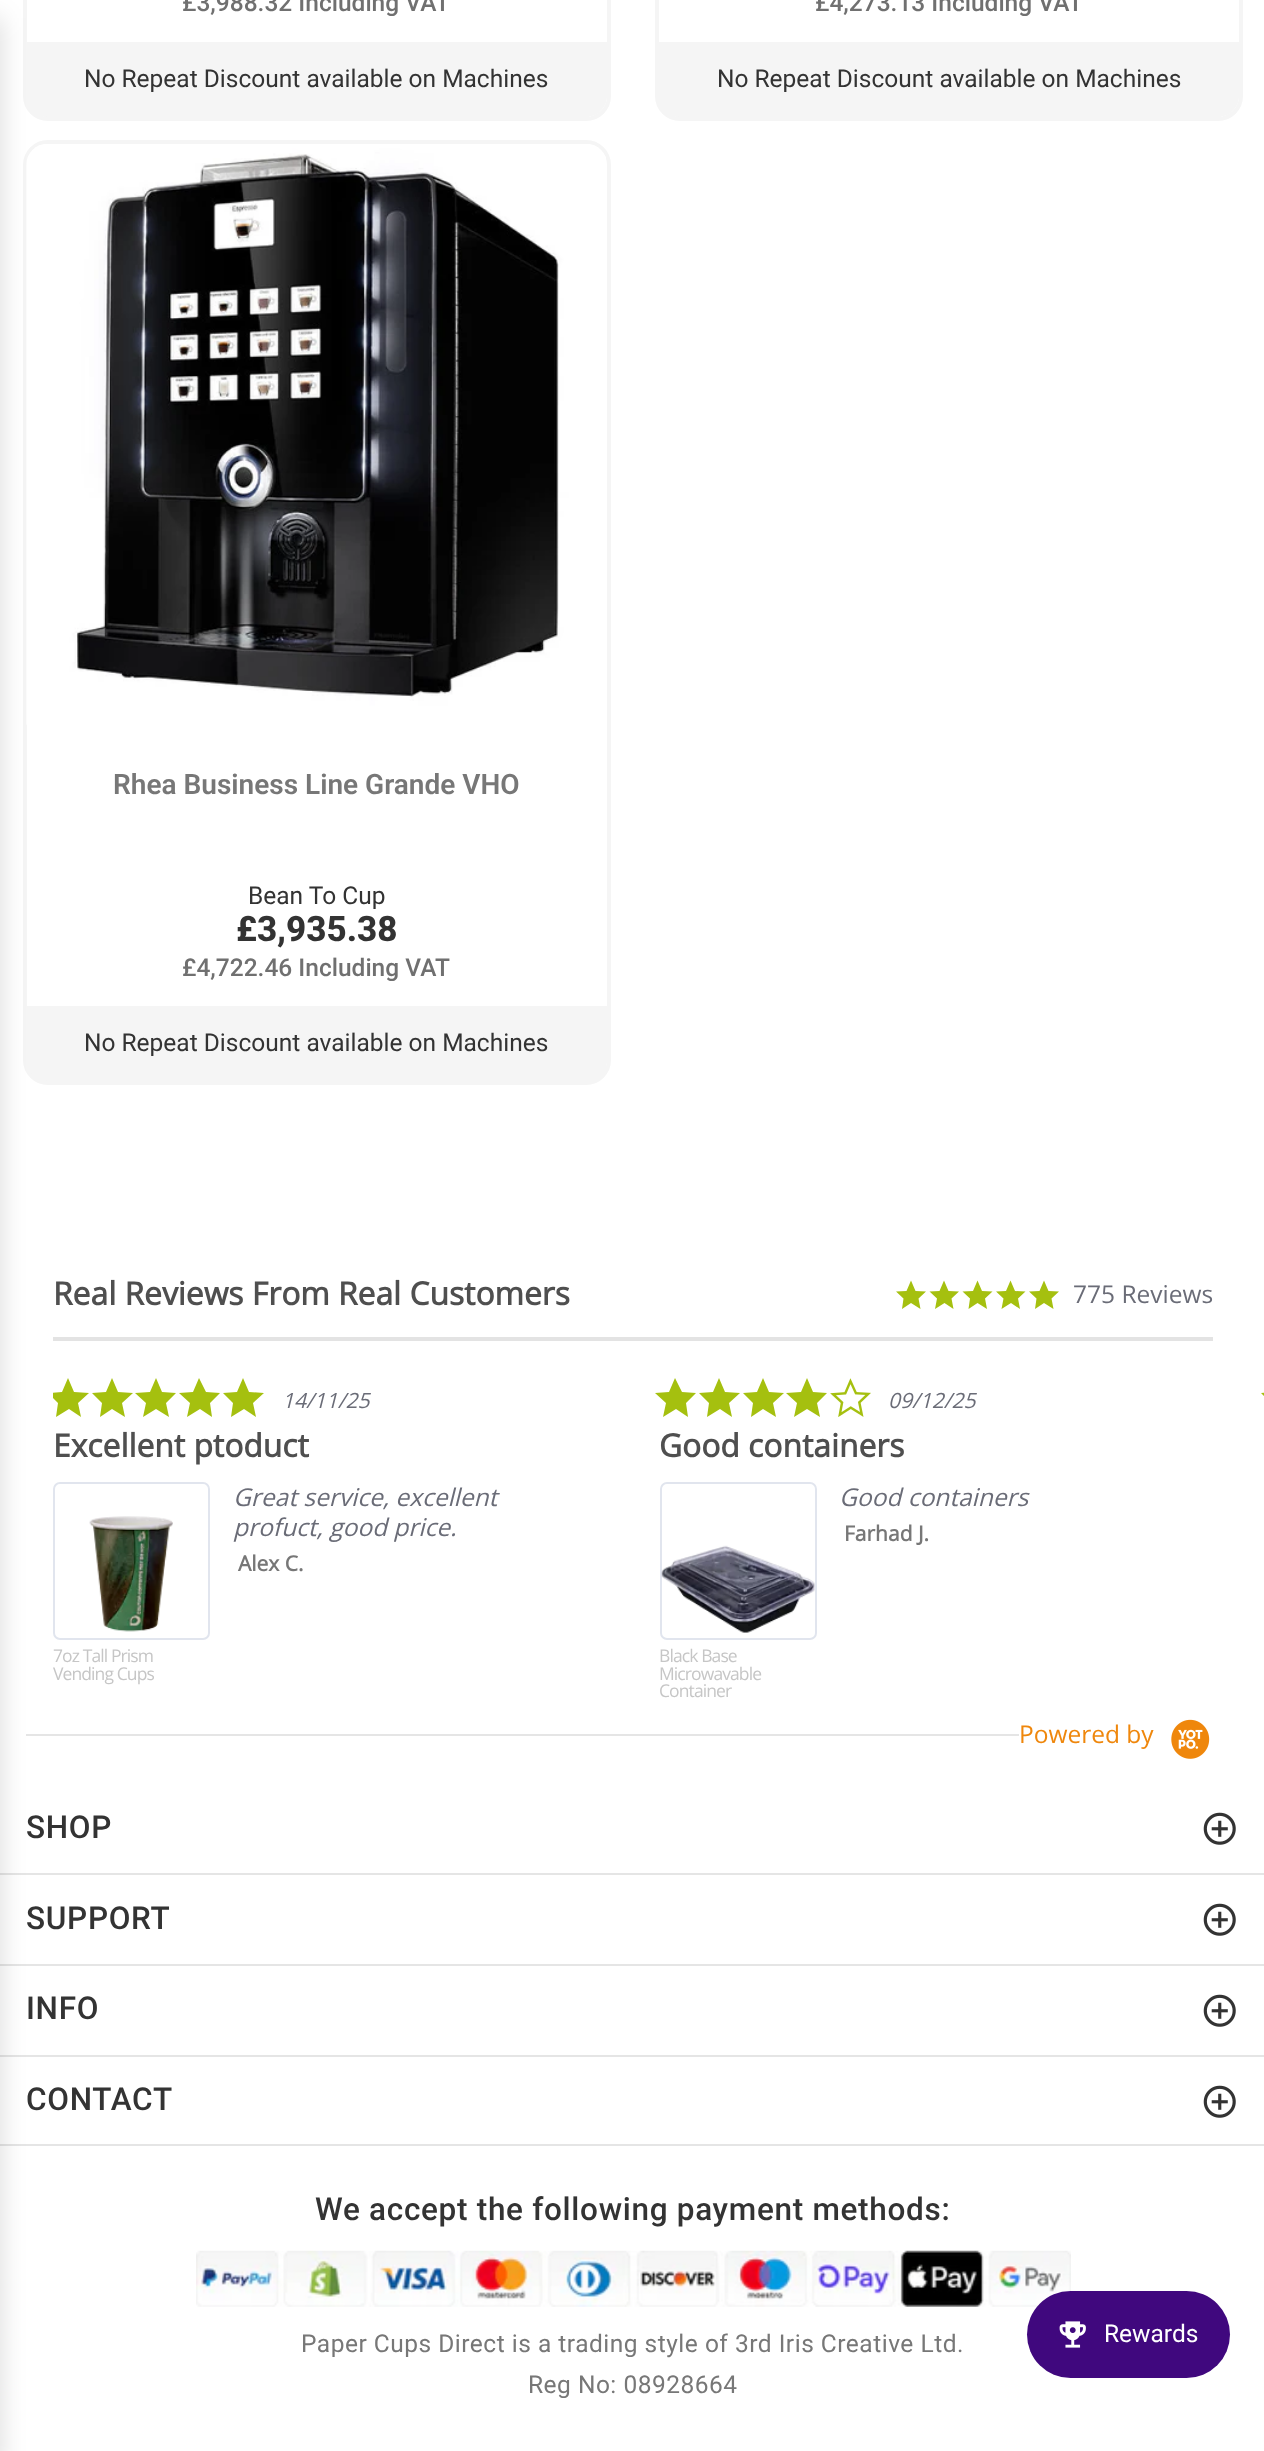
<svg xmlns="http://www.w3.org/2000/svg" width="1264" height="2451">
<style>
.a{font:500 24.5px Roboto;fill:#707070}
.b{font:24.5px Roboto;fill:#333}
.c{font:600 28px Roboto;fill:#777}
.d{font:800 35px Roboto;fill:#333}
.e{font:bold 31.8px Open Sans;fill:#4f4f4f}
.f{font:24.5px Open Sans;fill:#6a6c77}
.g{font:italic 21px Open Sans;fill:#6a6c77}
.h{font:italic 24.5px Open Sans;fill:#6a6c77}
.i{font:bold 21px Open Sans;fill:#777}
.j{font:17.5px Open Sans;letter-spacing:-0.9px;fill:#c6c6c6}
.k{font:24.5px Open Sans;fill:#ef870c}
.l{font:500 31.5px Roboto;letter-spacing:0.7px;fill:#333}
.m{font:24.5px Roboto;letter-spacing:0.5px;fill:#777}
.n{font:24.5px Roboto;fill:#fff}
</style>
<defs>
<clipPath id="clip1"><path d="M53 1349h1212v370H53z"/></clipPath>
</defs>
<rect width="100%" height="100%" fill="#fff"/>
<path fill="#f5f5f5" d="M26 42h581v54c0 11.5-9.5 21-21 21h-539c-11.5 0-21-9.5-21-21z"/>
<rect fill="none" stroke="#f5f5f5" stroke-width="4" x="25" y="-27" width="584" height="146" rx="23"/>
<path fill="#f5f5f5" d="M26 1006h581v55c0 11.5-9.5 21-21 21h-539c-11.5 0-21-9.5-21-21z"/>
<rect fill="none" stroke="#f5f5f5" stroke-width="4" x="25" y="142" width="584" height="941" rx="23"/>
<image href="1.png" x="26" y="144" width="580" height="581"/>
<path fill="#e5e5e5" d="M26 1734h993v2H26z"/>
<path fill="#e5e5e5" d="M0 1873h1264v2H0z"/>
<path fill="#e5e5e5" d="M0 1964h1264v2H0z"/>
<path fill="#e5e5e5" d="M0 2055h1264v2H0z"/>
<path fill="#e5e5e5" d="M0 2144h1264v2H0z"/>
<path fill="#00000026" filter="blur(13px)" d="M-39 18h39v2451H-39z"/>
<path fill="#f5f5f5" d="M658 42h581v54c0 11.5-9.5 21-21 21h-539c-11.5 0-21-9.5-21-21z"/>
<rect fill="none" stroke="#f5f5f5" stroke-width="4" x="657" y="-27" width="584" height="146" rx="23"/>
<path fill="#e3e3e3" d="M53 1337h1160v4H53z"/>
<path fill="#a5c00f" d="M920.5 1309l-9.5-6l-9 6l1.5-10.5l-7.5-7l10.5-.5l4.5-10.5l4.5 10.5l10.5 .5l-7.5 7zm33 0l-9-6l-9.5 6l2-10.5l-7.5-7l10-.5l4.5-10.5l4.5 10.5l10.5 .5l-7.5 7z"/>
<path fill="#a5c00f" d="M987 1309l-9.5-6l-9 6l1.5-10.5l-7.5-7l10.5-.5l4.5-10.5l4.5 10.5l10.5 .5l-7.5 7z"/>
<path fill="#a5c00f" d="M1020 1309l-9-6l-9.5 6l2-10.5l-7.5-7l10-.5l4.5-10.5l4.5 10.5l10.5 .5l-7.5 7zm33.5 0l-9.5-6l-9 6l1.5-10.5l-7.5-7l10.5-.5l4.5-10.5l4.5 10.5l10.5 .5l-7.5 7z"/>
<g clip-path="url(#clip1)">
<path fill="#a5c00f" d="M81 1417l-12-8l-13 8l2-14l-10-10l14-1l6-14l6 14l15 1l-11 10z"/>
</g>
<path fill="#a5c00f" d="M125 1417l-13-8l-12 8l2-14l-10-10l14-1l6-14l6 14l15 1l-11 10z"/>
<path fill="#a5c00f" d="M169 1417l-13-8l-13 8l3-14l-11-10l15-1l6-14l6 14l14 1l-10 10z"/>
<path fill="#a5c00f" d="M212 1417l-12-8l-13 8l3-14l-11-10l14-1l6-14l7 14l14 1l-10 10z"/>
<path fill="#a5c00f" d="M256 1417l-12-8l-13 8l2-14l-10-10l14-1l6-14l6 14l15 1l-11 10z"/>
<rect fill="none" stroke="#e1e5ee" stroke-width="2" x="54" y="1483" width="155" height="156" rx="6"/>
<image href="2.png" x="89" y="1516" width="84" height="116"/>
<path fill="#a5c00f" d="M688 1417l-12-8l-13 8l3-14l-11-10l14-1l6-14l7 14l14 1l-10 10z"/>
<path fill="#a5c00f" d="M732 1417l-12-8l-13 8l2-14l-10-10l14-1l6-14l6 14l15 1l-11 10z"/>
<path fill="#a5c00f" d="M776 1417l-13-8l-12 8l2-14l-10-10l14-1l6-14l6 14l15 1l-11 10z"/>
<path fill="#a5c00f" d="M820 1417l-13-8l-13 8l3-14l-11-10l15-1l6-14l6 14l14 1l-10 10z"/>
<image href="3.png" x="830" y="1378" width="41" height="39"/>
<rect fill="none" stroke="#e1e5ee" stroke-width="2" x="661" y="1483" width="155" height="156" rx="6"/>
<image href="4.png" x="661" y="1545" width="154" height="88"/>
<path fill="#a5c00f" d="M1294 1417l-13-8l-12 8l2-14l-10-10l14-1l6-14l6 14l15 1l-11 10z"/>
<image href="5.png" x="1171" y="1719" width="39" height="40"/>
<image href="6.png" x="1203" y="1812" width="33" height="33"/>
<image href="6.png" x="1203" y="1903" width="33" height="33"/>
<image href="6.png" x="1203" y="1994" width="33" height="33"/>
<image href="6.png" x="1203" y="2085" width="33" height="33"/>
<image href="7.png" x="196" y="2250" width="875" height="57"/>
<rect fill="#40087e" x="1027" y="2291" width="203" height="87" rx="43.5"/>
<image href="8.png" x="1059" y="2321" width="27" height="27"/>
<text class="a" x="182" y="11">£3,988.32 Including VAT</text>
<text class="b" x="84" y="87">No Repeat Discount available on Machines</text>
<text class="a" x="815" y="11">£4,273.13 Including VAT</text>
<text class="b" x="717" y="87">No Repeat Discount available on Machines</text>
<text class="c" x="113" y="794">Rhea Business Line Grande VHO</text>
<text class="b" x="248" y="904">Bean To Cup</text>
<text class="d" x="236" y="941">£3,935.38</text>
<text class="a" x="182" y="976">£4,722.46 Including VAT</text>
<text class="b" x="84" y="1051">No Repeat Discount available on Machines</text>
<text class="e" x="53" y="1305">Real Reviews From Real Customers</text>
<text class="f" x="1073" y="1303">775 Reviews</text>
<text class="g" x="282" y="1408">14/11/25</text>
<text class="e" x="53" y="1457">Excellent ptoduct</text>
<text class="h" x="233" y="1506">Great service, excellent</text>
<text class="h" x="233" y="1536">profuct, good price.</text>
<text class="i" x="238" y="1571">Alex C.</text>
<text class="j" x="53" y="1662">7oz Tall Prism</text>
<text class="j" x="53" y="1680">Vending Cups</text>
<text class="g" x="888" y="1408">09/12/25</text>
<text class="e" x="659" y="1457">Good containers</text>
<text class="h" x="839" y="1506">Good containers</text>
<text class="i" x="844" y="1541">Farhad J.</text>
<text class="j" x="659" y="1662">Black Base</text>
<text class="j" x="659" y="1680">Microwavable</text>
<text class="j" x="659" y="1697">Container</text>
<text class="k" x="1019" y="1743">Powered by</text>
<text class="l" x="26" y="1838">SHOP</text>
<text class="l" x="26" y="1929">SUPPORT</text>
<text class="l" x="26" y="2019">INFO</text>
<text class="l" x="26" y="2110">CONTACT</text>
<text class="l" x="315" y="2220">We accept the following payment methods:</text>
<text class="m" x="301" y="2352">Paper Cups Direct is a trading style of 3rd Iris Creative Ltd.</text>
<text class="m" x="528" y="2393">Reg No: 08928664</text>
<text class="n" x="1104" y="2342">Rewards</text>
</svg>
